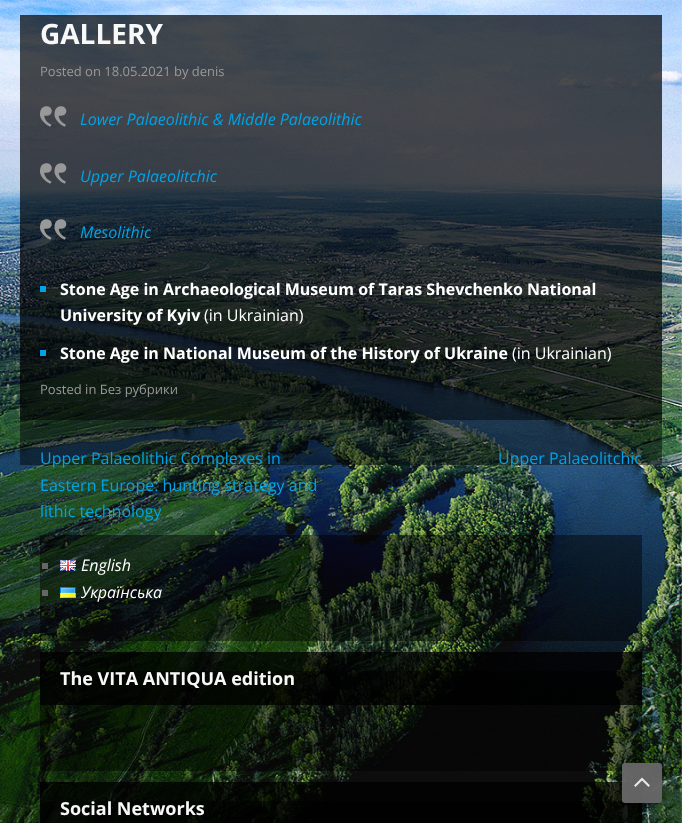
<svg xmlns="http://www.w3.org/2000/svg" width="682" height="823">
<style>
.a{font:bold 28px Open Sans;fill:#f8f8f8}
.b{font:13px Open Sans;fill:#999}
.c{font:italic 16px Open Sans;fill:#00a3e6}
.d{font:bold 16px Open Sans;fill:#fff}
.e{font:16px Open Sans;fill:#fff}
.f{font:16px Open Sans;fill:#00a3e6}
.g{font:italic 16px Open Sans;fill:#fff}
.h{font:bold 18px Open Sans;fill:#f8f8f8}
</style>
<defs>
<clipPath id="clip1"><path d="M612 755h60v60h-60zm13 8h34c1.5 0 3 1.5 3 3v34c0 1.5-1.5 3-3 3h-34c-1.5 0-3-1.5-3-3v-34c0-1.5 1.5-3 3-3z" clip-rule="evenodd"/></clipPath>
</defs>
<rect width="100%" height="100%" fill="#fff"/>
<image href="1.png" x="0" y="0" width="682" height="823"/>
<path fill="#00000073" d="M20 15h642v450H20z"/>
<path fill="#00000073" d="M20 15h642v405H20z"/>
<image href="2.png" x="40" y="106" width="27" height="21"/>
<image href="3.png" x="40" y="163" width="27" height="21"/>
<image href="4.png" x="40" y="219" width="27" height="21"/>
<path fill="#00a3e6" d="M40 286h6v6H40z"/>
<path fill="#00a3e6" d="M40 350h6v6H40z"/>
<path fill="#00000073" d="M40 535h602v106H40z"/>
<path fill="#666" d="M42 563h6v6H42z"/>
<image href="5.png" x="60" y="560" width="16" height="11"/>
<path fill="#666" d="M42 590h6v6H42z"/>
<image href="6.png" x="60" y="587" width="16" height="11"/>
<path fill="#00000073" d="M40 671h602v100H40z"/>
<path fill="#000000bf" d="M40 652h602v53H40z"/>
<path fill="#00000073" d="M40 801h602v22H40z"/>
<path fill="#000000bf" d="M40 782h602v41H40z"/>
<g clip-path="url(#clip1)">
<rect fill="#0000007a" filter="blur(3px)" x="622" y="765" width="40" height="40" rx="3"/>
</g>
<rect fill="#666666f7" x="622" y="763" width="40" height="40" rx="3"/>
<image href="7.png" x="634" y="777" width="16" height="10"/>
<text class="a" x="40" y="44">GALLERY</text>
<text class="b" x="40" y="76">Posted on 18.05.2021 by denis</text>
<text class="c" x="80" y="125">Lower Palaeolithic &amp; Middle Palaeolithic</text>
<text class="c" x="80" y="182">Upper Palaeolitchic</text>
<text class="c" x="80" y="238">Mesolithic</text>
<text class="d" x="60" y="295">Stone Age in Archaeological Museum of Taras Shevchenko National</text>
<text class="d" x="60" y="321">University of Kyiv</text>
<text class="e" x="204" y="321">(in Ukrainian)</text>
<text class="d" x="60" y="359">Stone Age in National Museum of the History of Ukraine</text>
<text class="e" x="512" y="359">(in Ukrainian)</text>
<text class="b" x="40" y="394">Posted in Без рубрики</text>
<text class="f" x="40" y="464">Upper Palaeolithic Complexes in</text>
<text class="f" x="40" y="491">Eastern Europe: hunting strategy and</text>
<text class="f" x="40" y="517">lithic technology</text>
<text class="f" x="498" y="464">Upper Palaeolitchic</text>
<text class="g" x="81" y="571">English</text>
<text class="g" x="81" y="598">Українська</text>
<text class="h" x="60" y="685">The VITA ANTIQUA edition</text>
<text class="h" x="60" y="815">Social Networks</text>
</svg>
